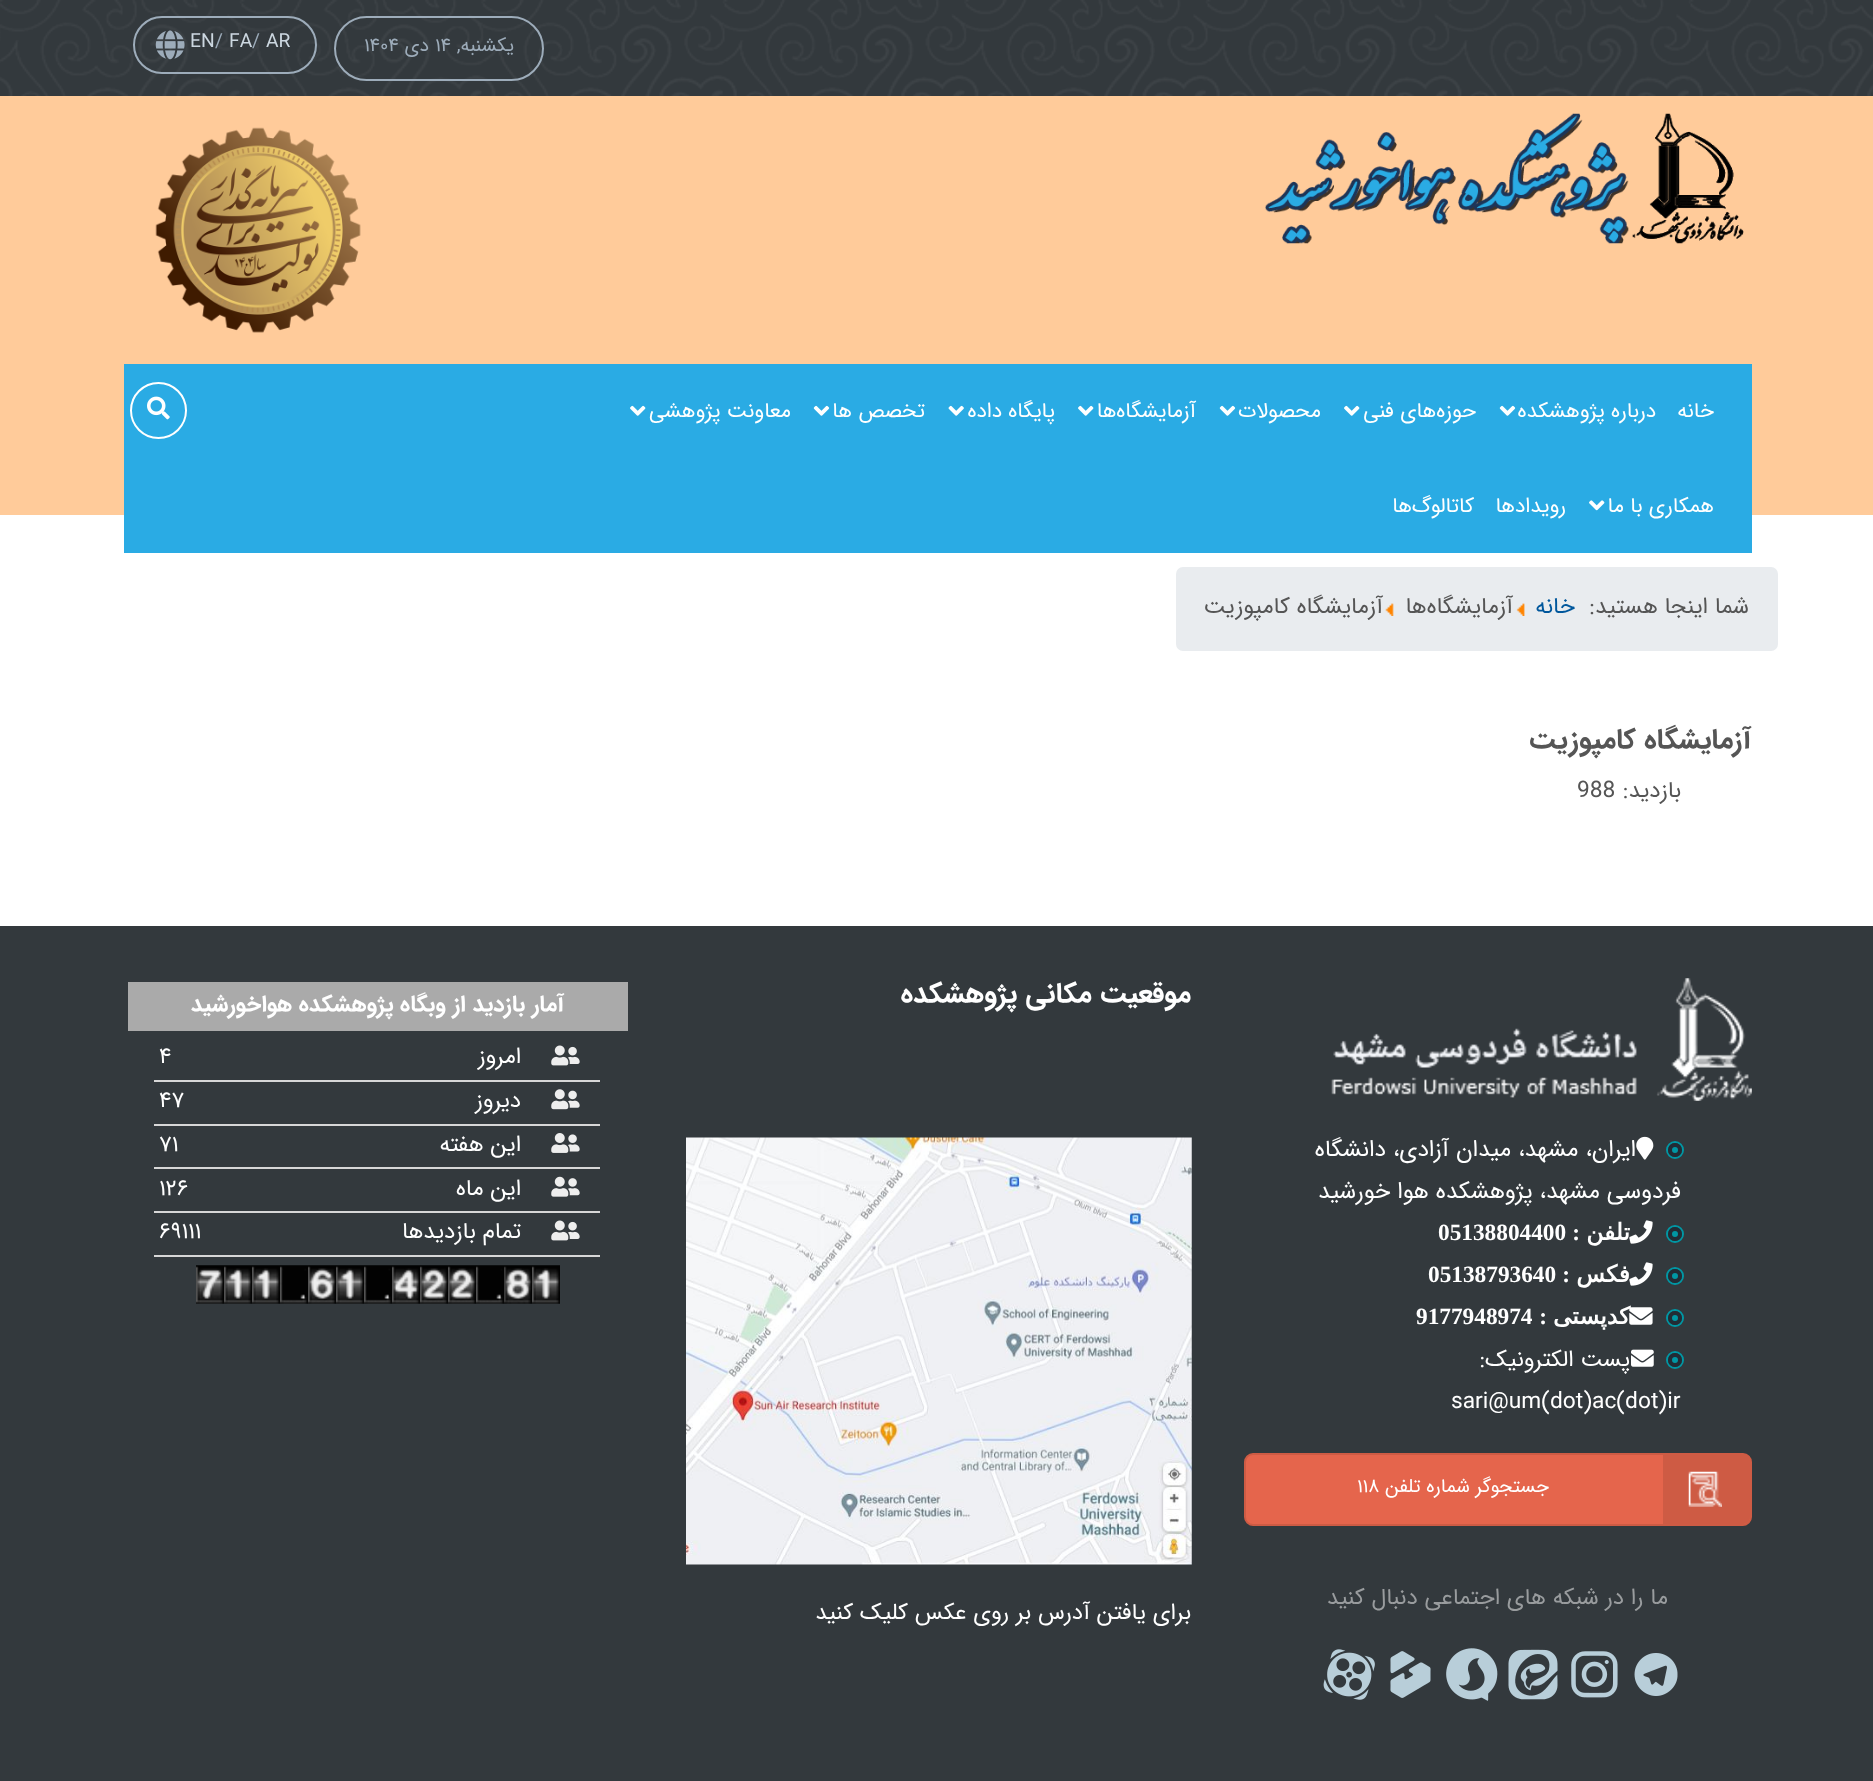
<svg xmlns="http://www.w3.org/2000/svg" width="1873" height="1781">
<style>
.a{font:19.25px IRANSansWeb;direction:rtl;fill:#9dacba}
.b{font:19.25px IRANSansWeb;fill:#9dacba}
.c{font:19.25px IRANSansWeb;fill:#ccd7e0}
.d{font:21px IRANSansWeb;direction:rtl;fill:#fff}
.e{font:22.75px IRANSansWeb;direction:rtl;fill:#555}
.f{font:22.75px IRANSansWeb;direction:rtl;fill:#00579c}
.g{font:bold 28px IRANSansWeb;direction:rtl;fill:#555}
.h{font:22.75px IRANSansWeb;fill:#555}
.i{font:23.3px IRANSansWeb;direction:rtl;fill:#fff}
.j{font:bold 23.3px DejaVu Sans;direction:rtl;fill:#fff}
.k{font:bold 23.3px Liberation Serif;direction:rtl;fill:#fff}
.l{font:bold 23.3px Liberation Serif;fill:#fff}
.m{font:22.75px IRANSansWeb;direction:rtl;fill:#fff}
.n{font:22.75px IRANSansWeb;fill:#fff}
.o{font:19.25px IRANSansWeb;direction:rtl;fill:#fff}
.p{font:19.25px IRANSansWeb;fill:#fff}
.q{font:22.75px IRANSansWeb;direction:rtl;fill:#999c9e}
.r{font:bold 28px IRANSansWeb;direction:rtl;fill:#fff}
.s{font:bold 22.75px IRANSansWeb;direction:rtl;fill:#fff}
</style>
<rect width="100%" height="100%" fill="#fff"/>
<path fill="#ffcb9a" d="M0 96h1873v419H0z"/>
<path fill="#33393d" d="M0 0h1873v96H0z"/>
<image href="1.png" x="0" y="0" width="1873" height="96"/>
<rect fill="none" stroke="#9dacba" stroke-width="2" x="335" y="17" width="208" height="63" rx="31.5"/>
<rect fill="none" stroke="#9dacba" stroke-width="2" x="134" y="17" width="182" height="56" rx="28"/>
<image href="2.png" x="155" y="30" width="30" height="30"/>
<image href="3.png" x="1265" y="113" width="479" height="131"/>
<image href="4.png" x="155" y="127" width="206" height="206"/>
<path fill="#2aabe4" d="M124 364h1628v189H124z"/>
<image href="5.png" x="1499" y="405" width="17" height="11"/>
<image href="6.png" x="1344" y="405" width="16" height="11"/>
<image href="5.png" x="1219" y="405" width="17" height="11"/>
<image href="6.png" x="1078" y="405" width="16" height="11"/>
<image href="7.png" x="948" y="405" width="16" height="11"/>
<image href="5.png" x="813" y="405" width="17" height="11"/>
<image href="6.png" x="630" y="405" width="16" height="11"/>
<image href="8.png" x="1589" y="500" width="16" height="11"/>
<circle fill="none" stroke="#fff" stroke-width="2" cx="158.5" cy="410.5" r="27.5"/>
<image href="9.png" x="147" y="396" width="23" height="24"/>
<rect fill="#e9ecef" x="1176" y="567" width="602" height="84" rx="7"/>
<image href="10.png" x="1516" y="603" width="9" height="13"/>
<image href="11.png" x="1385" y="603" width="9" height="13"/>
<path fill="#33393d" d="M0 926h1873v855H0z"/>
<image href="12.png" x="1331" y="978" width="421" height="123"/>
<circle fill="none" stroke="#0097a4" stroke-width="2" cx="1675" cy="1150" r="8"/>
<circle fill="#0097a4" stroke="#222c35" stroke-width="4" cx="1675" cy="1150" r="5"/>
<image href="13.png" x="1636" y="1136" width="18" height="24"/>
<circle fill="none" stroke="#0097a4" stroke-width="2" cx="1675" cy="1234" r="8"/>
<circle fill="#0097a4" stroke="#222c35" stroke-width="4" cx="1675" cy="1234" r="5"/>
<image href="14.png" x="1629" y="1220" width="24" height="24"/>
<circle fill="none" stroke="#0097a4" stroke-width="2" cx="1675" cy="1276" r="8"/>
<circle fill="#0097a4" stroke="#222c35" stroke-width="4" cx="1675" cy="1276" r="5"/>
<image href="14.png" x="1629" y="1262" width="24" height="24"/>
<circle fill="none" stroke="#0097a4" stroke-width="2" cx="1675" cy="1318" r="8"/>
<circle fill="#0097a4" stroke="#222c35" stroke-width="4" cx="1675" cy="1318" r="5"/>
<image href="15.png" x="1629" y="1307" width="24" height="18"/>
<circle fill="none" stroke="#0097a4" stroke-width="2" cx="1675" cy="1360" r="8"/>
<circle fill="#0097a4" stroke="#222c35" stroke-width="4" cx="1675" cy="1360" r="5"/>
<image href="16.png" x="1631" y="1349" width="23" height="18"/>
<rect fill="#e5654c" stroke="#ce5b44" stroke-width="2" x="1245" y="1454" width="506" height="71" rx="8"/>
<path fill="#ce5b44" d="M1663 1454h80c4 0 7 3 7 7v56c0 4-3 7-7 7h-80z"/>
<image href="17.png" x="1688" y="1471" width="34" height="36"/>
<image href="18.png" x="1634" y="1653" width="44" height="43"/>
<image href="19.png" x="1571" y="1651" width="47" height="47"/>
<image href="20.png" x="1508" y="1649" width="50" height="51"/>
<image href="21.png" x="1446" y="1648" width="52" height="53"/>
<image href="22.png" x="1390" y="1651" width="41" height="47"/>
<image href="23.png" x="1323" y="1649" width="52" height="51"/>
<image href="24.png" x="686" y="1137" width="506" height="428"/>
<path fill="#aaa" d="M128 982h500v49H128z"/>
<image href="25.png" x="551" y="1045" width="29" height="21"/>
<path fill="#d7d7d7" d="M154 1080h446v2H154z"/>
<image href="26.png" x="551" y="1089" width="29" height="21"/>
<path fill="#d7d7d7" d="M154 1124h446v2H154z"/>
<image href="27.png" x="551" y="1133" width="29" height="20"/>
<path fill="#d7d7d7" d="M154 1167h446v2H154z"/>
<image href="28.png" x="551" y="1176" width="29" height="21"/>
<path fill="#d7d7d7" d="M154 1211h446v2H154z"/>
<image href="25.png" x="551" y="1220" width="29" height="21"/>
<path fill="#d7d7d7" d="M154 1255h446v2H154z"/>
<image href="29.png" x="532" y="1265" width="28" height="39"/>
<image href="30.png" x="504" y="1265" width="28" height="39"/>
<image href="31.png" x="476" y="1265" width="28" height="39"/>
<image href="32.png" x="448" y="1265" width="28" height="39"/>
<image href="32.png" x="420" y="1265" width="28" height="39"/>
<image href="33.png" x="392" y="1265" width="28" height="39"/>
<image href="31.png" x="364" y="1265" width="28" height="39"/>
<image href="34.png" x="336" y="1265" width="28" height="39"/>
<image href="35.png" x="308" y="1265" width="28" height="39"/>
<image href="36.png" x="280" y="1265" width="28" height="39"/>
<image href="34.png" x="252" y="1265" width="28" height="39"/>
<image href="34.png" x="224" y="1265" width="28" height="39"/>
<image href="37.png" x="196" y="1265" width="28" height="39"/>
<text class="a" x="514" y="51">یکشنبه,</text>
<text class="b" x="435" y="51">۱۴</text>
<text class="a" x="429" y="51">دی</text>
<text class="b" x="364" y="51">۱۴۰۴</text>
<text class="c" x="266" y="47">AR</text>
<text class="b" x="252" y="47">/</text>
<text class="c" x="229" y="47">FA</text>
<text class="b" x="215" y="47">/</text>
<text class="c" x="190" y="47">EN</text>
<text class="d" x="1714" y="417">خانه</text>
<text class="d" x="1656" y="417">درباره پژوهشکده</text>
<text class="d" x="1476" y="417">حوزه‌های فنی</text>
<text class="d" x="1321" y="417">محصولات</text>
<text class="d" x="1196" y="417">آزمایشگاه‌ها</text>
<text class="d" x="1055" y="417">پایگاه داده</text>
<text class="d" x="925" y="417">تخصص‌ ها</text>
<text class="d" x="791" y="417">معاونت پژوهشی</text>
<text class="d" x="1714" y="512">همکاری با ما</text>
<text class="d" x="1566" y="512">رویدادها</text>
<text class="d" x="1474" y="512">کاتالوگ‌ها</text>
<text class="e" x="1749" y="613">شما اینجا هستید:</text>
<text class="f" x="1575" y="613">خانه</text>
<text class="e" x="1513" y="613">آزمایشگاه‌ها</text>
<text class="e" x="1383" y="613">آزمایشگاه کامپوزیت</text>
<text class="g" x="1751" y="748">آزمایشگاه کامپوزیت</text>
<text class="e" x="1681" y="797">بازدید:</text>
<text class="h" x="1577" y="797">988</text>
<text class="i" x="1636" y="1156">ایران، مشهد، میدان آزادی، دانشگاه</text>
<text class="i" x="1681" y="1198">فردوسی مشهد، پژوهشکده هوا خورشید</text>
<text class="j" x="1630" y="1240">تلفن</text>
<text class="k" x="1580" y="1240">:</text>
<text class="l" x="1438" y="1240">05138804400</text>
<text class="j" x="1630" y="1282">فکس</text>
<text class="k" x="1570" y="1282">:</text>
<text class="l" x="1428" y="1282">05138793640</text>
<text class="j" x="1630" y="1324">کدپستی</text>
<text class="k" x="1547" y="1324">:</text>
<text class="l" x="1416" y="1324">9177948974</text>
<text class="m" x="1630" y="1366">پست الکترونیک:</text>
<text class="n" x="1451" y="1408">sari@um(dot)ac(dot)ir</text>
<text class="o" x="1549" y="1492">جستجوگر شماره تلفن</text>
<text class="p" x="1357" y="1492">۱۱۸</text>
<text class="q" x="1668" y="1604">ما را در شبکه های اجتماعی دنبال کنید</text>
<text class="r" x="1191" y="1002">موقعیت مکانی پژوهشکده</text>
<text class="m" x="1191" y="1619">برای یافتن آدرس بر روی عکس کلیک کنید</text>
<text class="s" x="564" y="1011">آمار بازدید از وبگاه پژوهشکده هواخورشید</text>
<text class="m" x="521" y="1063">امروز</text>
<text class="n" x="159" y="1063">۴</text>
<text class="m" x="521" y="1107">دیروز</text>
<text class="n" x="159" y="1107">۴۷</text>
<text class="m" x="521" y="1151">این هفته</text>
<text class="n" x="159" y="1151">۷۱</text>
<text class="m" x="521" y="1195">این ماه</text>
<text class="n" x="159" y="1195">۱۲۶</text>
<text class="m" x="521" y="1238">تمام بازدیدها</text>
<text class="n" x="159" y="1238">۶۹۱۱۱</text>
</svg>
